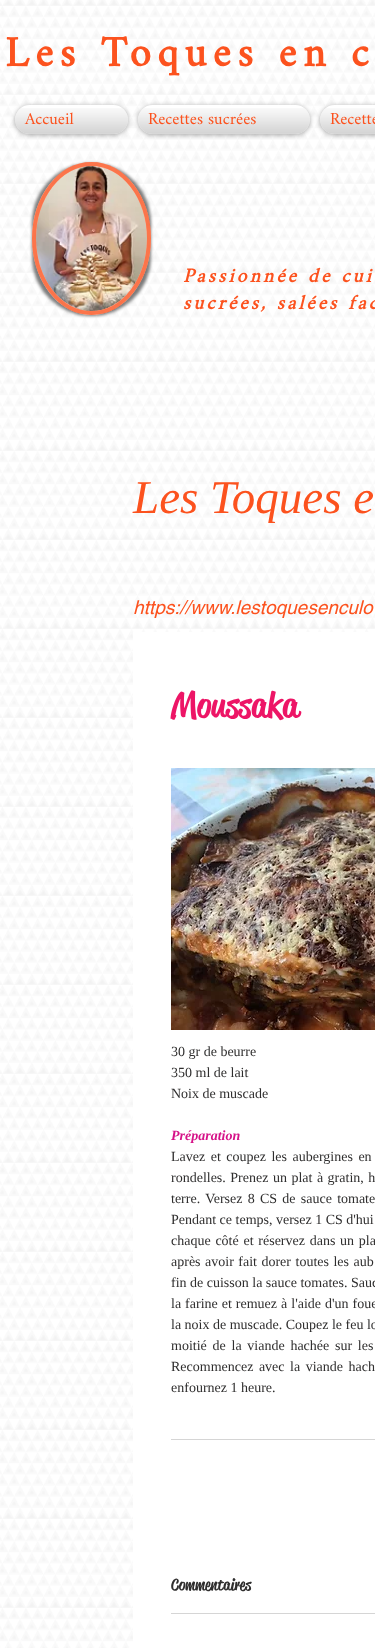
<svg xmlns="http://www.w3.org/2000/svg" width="375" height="1648">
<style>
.a{font:bold 43px Amiri;letter-spacing:6.5px;fill:#fc521e}
.b{font:17px Amiri;fill:#fc521e}
.c{font:italic bold 20px Amiri;letter-spacing:3px;fill:#fc521e}
.d{font:italic 47px Liberation Serif;fill:#fc521e}
.e{font:italic 19px helvetica;fill:#fc521e}
.f{font:500 35px 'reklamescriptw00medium';fill:#ed1566}
.g{font:14px Liberation Serif;fill:#2f2e2e}
.h{font:italic bold 14px Liberation Serif;fill:#d61288}
.i{font:500 16px 'reklamescriptw00medium';fill:#2f2e2e}
</style>
<defs>
<clipPath id="clip1"><path d="M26 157h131v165h-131zm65.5 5c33 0 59.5 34.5 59.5 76.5c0 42-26.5 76.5-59.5 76.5c-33 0-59.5-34.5-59.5-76.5c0-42 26.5-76.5 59.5-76.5z" clip-rule="evenodd"/></clipPath>
</defs>
<rect width="100%" height="100%" fill="#fff"/>
<image href="1.png" x="0" y="0" width="375" height="1648"/>
<rect fill="#6b6a6a99" filter="blur(2.5px)" x="15" y="106" width="113" height="29" rx="14.5"/>
<rect fill="#fff" x="15" y="105" width="113" height="29" rx="14.5"/>
<image href="2.png" x="15" y="108" width="113" height="26"/>
<rect fill="#6b6a6a99" filter="blur(2.5px)" x="138" y="106" width="172" height="29" rx="14.5"/>
<rect fill="#fff" x="138" y="105" width="172" height="29" rx="14.5"/>
<image href="3.png" x="138" y="108" width="172" height="26"/>
<rect fill="#6b6a6a99" filter="blur(2.5px)" x="320" y="106" width="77" height="29" rx="14.5"/>
<rect fill="#fff" x="320" y="105" width="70" height="29" rx="14.5"/>
<image href="4.png" x="320" y="108" width="55" height="26"/>
<g clip-path="url(#clip1)">
<rect fill="#00000080" filter="blur(1.5px)" x="32" y="163" width="119" height="153" rx="59.5"/>
</g>
<ellipse fill="#fc521e8c" cx="91.5" cy="238.5" rx="59.5" ry="76.5"/>
<path fill="none" stroke="#fc521e8c" stroke-width="4" d="M91.5 164c32 0 57.5 33.5 57.5 74.5c0 41-25.5 74.5-57.5 74.5c-32 0-57.5-33.5-57.5-74.5c0-41 25.5-74.5 57.5-74.5z"/>
<image href="5.png" x="36" y="166" width="111" height="145"/>
<path fill="#fff" d="M133 632h242v1016H133z"/>
<image href="6.png" x="171" y="768" width="204" height="262"/>
<path fill="#d5d5d5" d="M171 1439h204v1H171z"/>
<path fill="#d5d5d5" d="M171 1613h204v1H171z"/>
<text class="a" x="5" y="66">Les Toques en c</text>
<text class="b" x="25" y="124">Accueil</text>
<text class="b" x="148" y="124">Recettes sucrées</text>
<text class="b" x="330" y="124">Recette</text>
<text class="c" x="183" y="282">Passionnée de cui</text>
<text class="c" x="183" y="309">sucrées, salées fac</text>
<text class="d" x="133" y="513">Les Toques e</text>
<text class="e" x="133" y="614">https://www.lestoquesenculo</text>
<text class="f" x="171" y="717">Moussaka</text>
<text class="g" x="171" y="1056">30 gr de beurre</text>
<text class="g" x="171" y="1077">350 ml de lait</text>
<text class="g" x="171" y="1098">Noix de muscade</text>
<text class="h" x="171" y="1140">Préparation</text>
<text class="g" x="171" y="1161" word-spacing="2">Lavez et coupez les aubergines en</text>
<text class="g" x="171" y="1182" word-spacing="1">rondelles. Prenez un plat à gratin, h</text>
<text class="g" x="171" y="1203" word-spacing="1.75">terre. Versez 8 CS de sauce tomate</text>
<text class="g" x="171" y="1224">Pendant ce temps, versez 1 CS d'hui</text>
<text class="g" x="171" y="1245" word-spacing="1.25">chaque côté et réservez dans un pla</text>
<text class="g" x="171" y="1266" word-spacing="1">après avoir fait dorer toutes les aub</text>
<text class="g" x="171" y="1287">fin de cuisson la sauce tomates. Sauc</text>
<text class="g" x="171" y="1308" word-spacing="0.5">la farine et remuez à l'aide d'un foue</text>
<text class="g" x="171" y="1329">la noix de muscade. Coupez le feu lo</text>
<text class="g" x="171" y="1350" word-spacing="2.25">moitié de la viande hachée sur les</text>
<text class="g" x="171" y="1371" word-spacing="2">Recommencez avec la viande hach</text>
<text class="g" x="171" y="1392">enfournez 1 heure.</text>
<text class="i" x="171" y="1590">Commentaires</text>
</svg>
